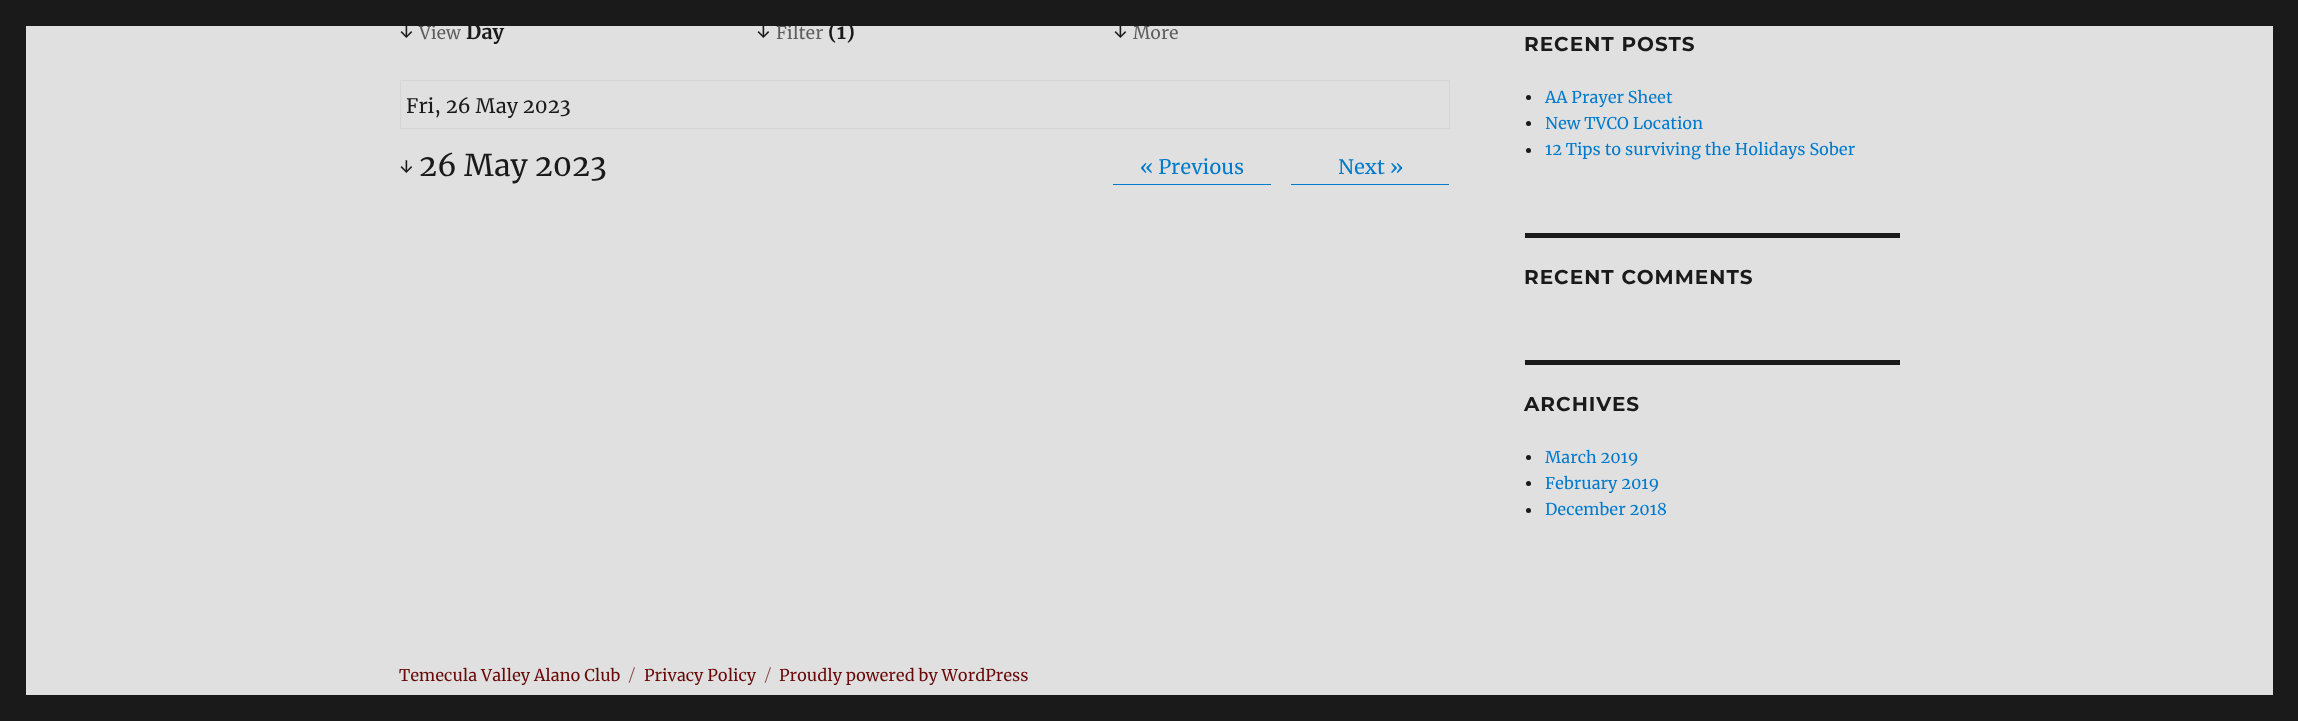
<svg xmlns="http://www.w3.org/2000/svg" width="2298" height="721">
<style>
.a{font:20px Merriweather;fill:#1a1a1a}
.b{font:17.5px Merriweather;fill:#5d5d5d}
.c{font:bold 20px Merriweather;fill:#1a1a1a}
.d{font:30px Merriweather;fill:#1a1a1a}
.e{font:20px Merriweather;fill:#007acc}
.f{font:100 20px Montserrat;letter-spacing:1px;fill:#1a1a1a}
.g{font:16.25px Merriweather;fill:#007acc}
.h{font:16.25px Merriweather;fill:#680808}
.i{font:100 16.25px 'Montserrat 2';fill:#8c4949}
</style>
<rect width="100%" height="100%" fill="#1a1a1a"/>
<path fill="#e0e0e0" d="M26 26h2247v669H26z"/>
<path fill="none" stroke="#d5d5d5" d="M400.5 80.5h1049v48H400.5z"/>
<path fill="#007acc" d="M1113 184h158v1H1113z"/>
<path fill="#007acc" d="M1291 150v35h158v-35v34h-158z"/>
<circle fill="#1a1a1a" cx="1528.5" cy="97.5" r="2.5"/>
<circle fill="#1a1a1a" cx="1528.5" cy="123.5" r="2.5"/>
<circle fill="#1a1a1a" cx="1528.5" cy="150.5" r="2.5"/>
<path fill="#1a1a1a" d="M1525 233h375v5H1525z"/>
<path fill="#1a1a1a" d="M1525 360h375v5H1525z"/>
<circle fill="#1a1a1a" cx="1528.5" cy="457.5" r="2.5"/>
<circle fill="#1a1a1a" cx="1528.5" cy="483.5" r="2.5"/>
<circle fill="#1a1a1a" cx="1528.5" cy="510.5" r="2.5"/>
<text class="a" x="399" y="39">↓</text>
<text class="b" x="419" y="39">View</text>
<text class="c" x="466" y="39">Day</text>
<text class="a" x="756" y="39">↓</text>
<text class="b" x="776" y="39">Filter</text>
<text class="c" x="828" y="39">(1)</text>
<text class="a" x="1113" y="39">↓</text>
<text class="b" x="1133" y="39">More</text>
<text class="a" x="406" y="113">Fri, 26 May 2023</text>
<text class="a" x="399" y="174">↓</text>
<text class="d" x="419" y="176">26 May 2023</text>
<text class="e" x="1140" y="174">« Previous</text>
<text class="e" x="1338" y="174">Next »</text>
<text class="f" x="1524" y="51">RECENT POSTS</text>
<text class="g" x="1545" y="103">AA Prayer Sheet</text>
<text class="g" x="1545" y="129">New TVCO Location</text>
<text class="g" x="1545" y="155">12 Tips to surviving the Holidays Sober</text>
<text class="f" x="1524" y="284">RECENT COMMENTS</text>
<text class="f" x="1524" y="411">ARCHIVES</text>
<text class="g" x="1545" y="463">March 2019</text>
<text class="g" x="1545" y="489">February 2019</text>
<text class="g" x="1545" y="515">December 2018</text>
<text class="h" x="399" y="681">Temecula Valley Alano Club</text>
<text class="i" x="629" y="681">/</text>
<text class="h" x="644" y="681">Privacy Policy</text>
<text class="i" x="765" y="681">/</text>
<text class="h" x="779" y="681">Proudly powered by WordPress</text>
<path fill="#1a1a1a" d="M432 24h365v2H432z"/>
</svg>
